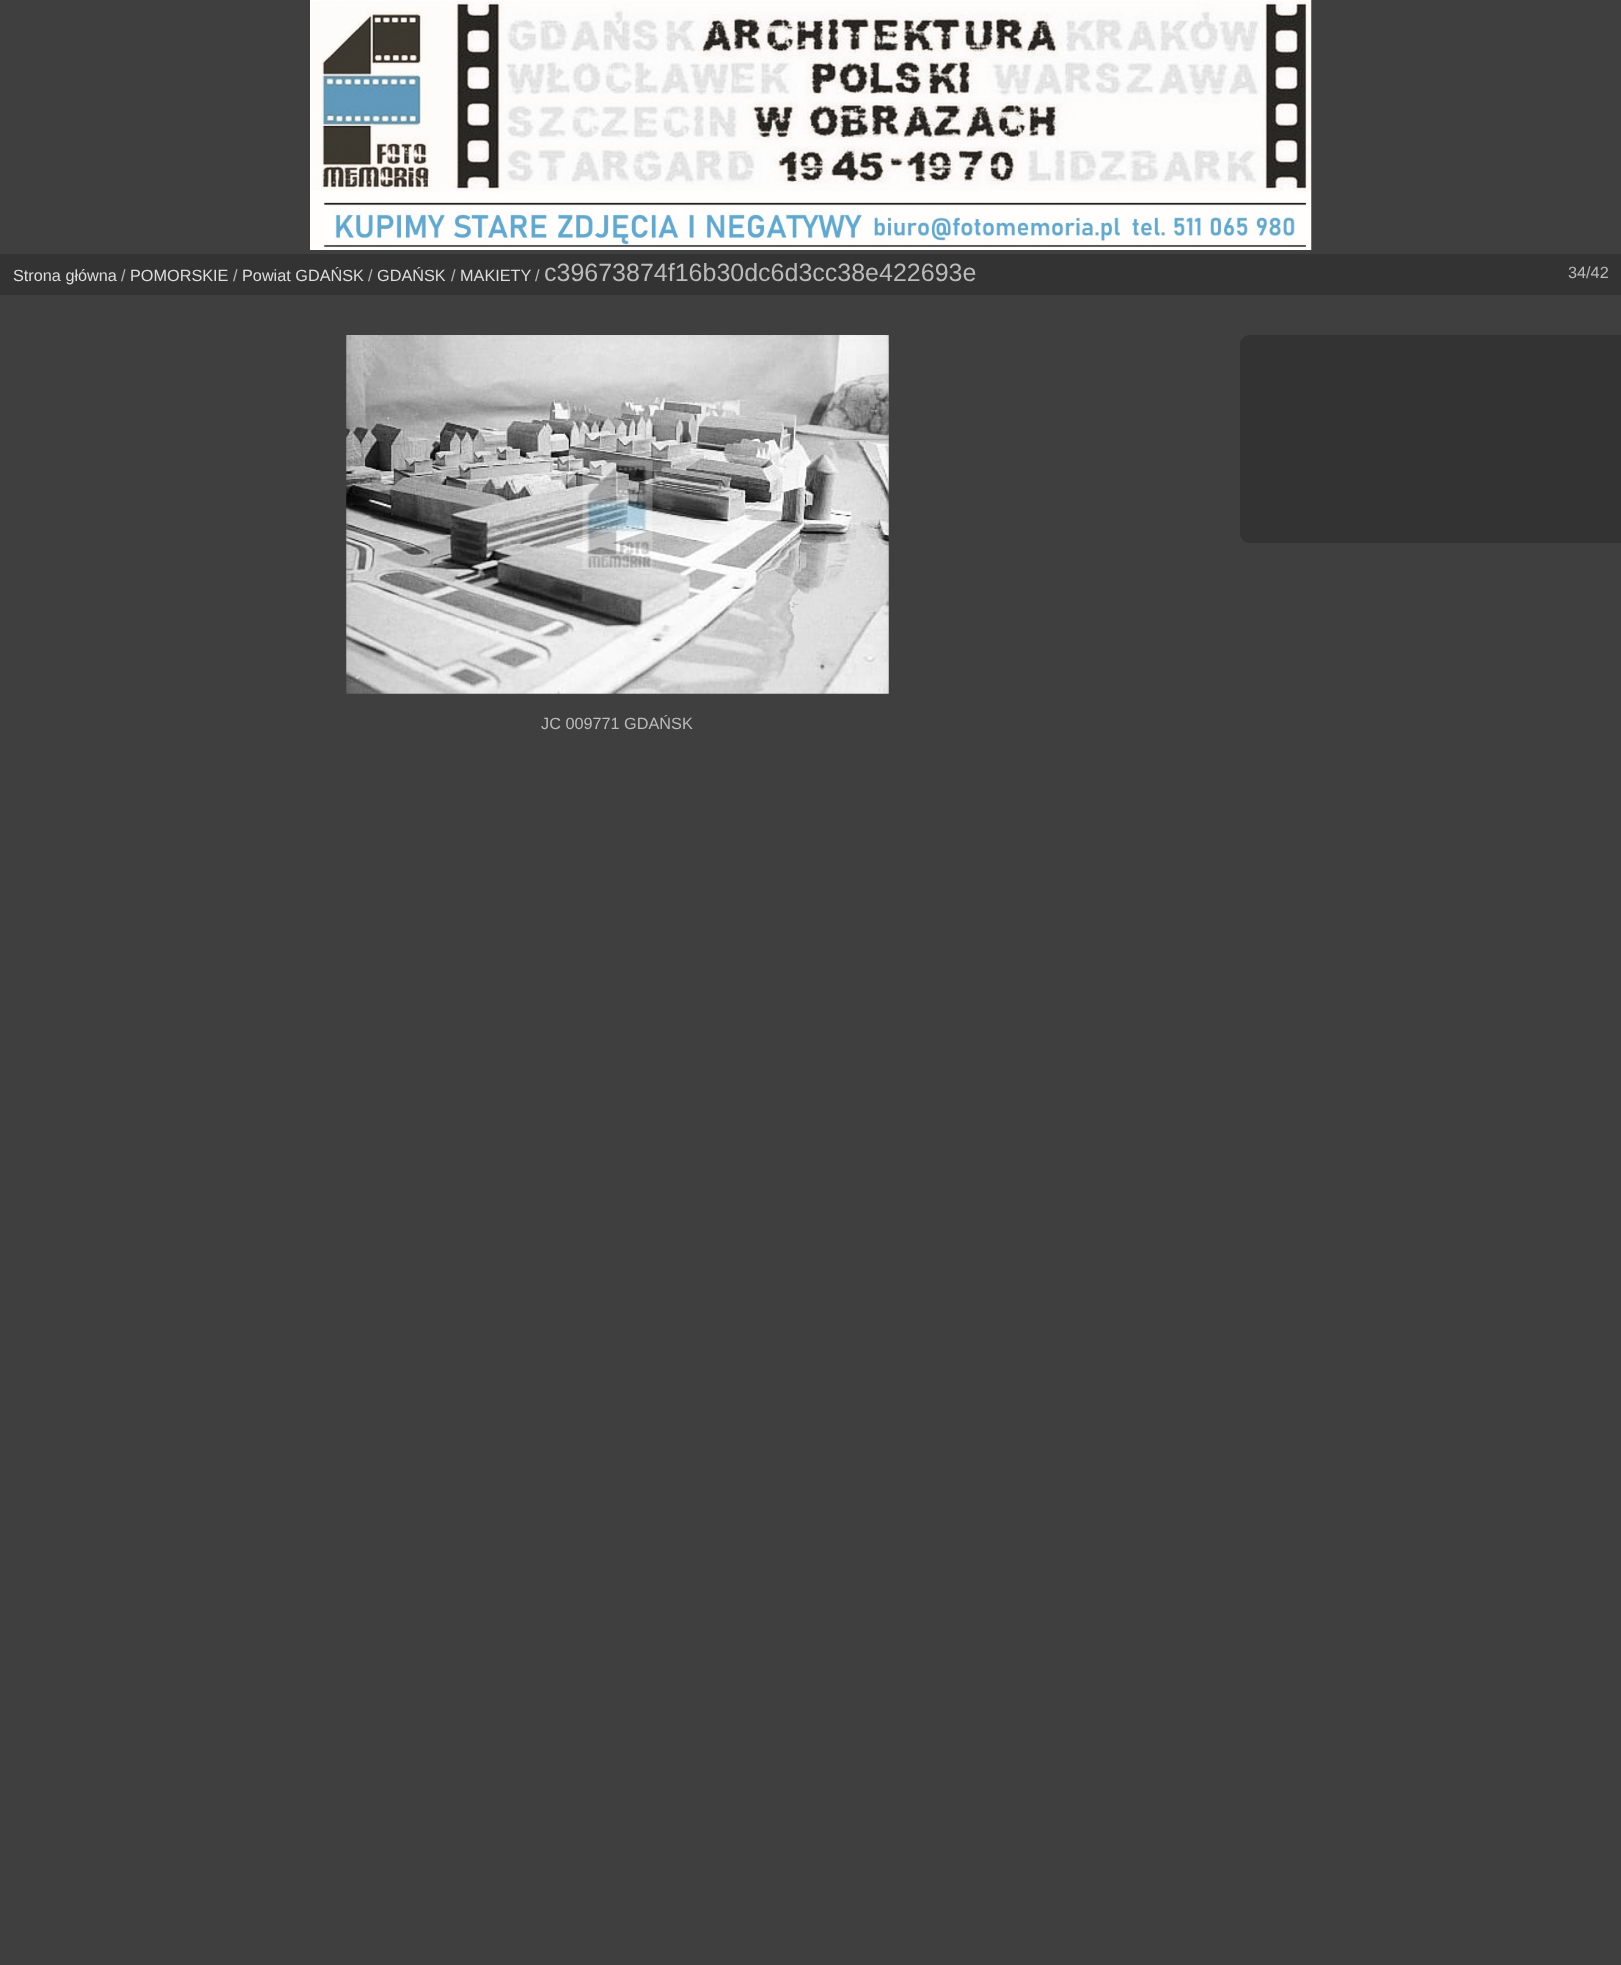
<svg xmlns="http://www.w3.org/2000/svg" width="1621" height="1965">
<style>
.a{font:16.25px Liberation Sans;fill:#ddd}
.b{font:16.25px Liberation Sans;fill:#bbb}
.c{font:25px Liberation Sans;fill:#bbb}
</style>
<rect width="100%" height="100%" fill="#3f3f3f"/>
<image href="1.png" x="310" y="0" width="1002" height="250"/>
<path fill="#333" d="M0 254h1621v41H0z"/>
<path fill="#333" d="M1250 335h371v208h-371c-5.5 0-10-4.5-10-10v-188c0-5.5 4.5-10 10-10z"/>
<image href="2.png" x="346" y="335" width="543" height="359"/>
<text class="a" x="13" y="281">Strona główna</text>
<text class="b" x="121" y="281">/</text>
<text class="a" x="130" y="281">POMORSKIE</text>
<text class="b" x="233" y="281">/</text>
<text class="a" x="242" y="281">Powiat GDAŃSK</text>
<text class="b" x="368" y="281">/</text>
<text class="a" x="377" y="281">GDAŃSK</text>
<text class="b" x="451" y="281">/</text>
<text class="a" x="460" y="281">MAKIETY</text>
<text class="b" x="535" y="281">/</text>
<text class="c" x="544" y="281">c39673874f16b30dc6d3cc38e422693e</text>
<text class="b" x="1568" y="278">34/42</text>
<text class="b" x="541" y="729">JC 009771 GDAŃSK</text>
</svg>
